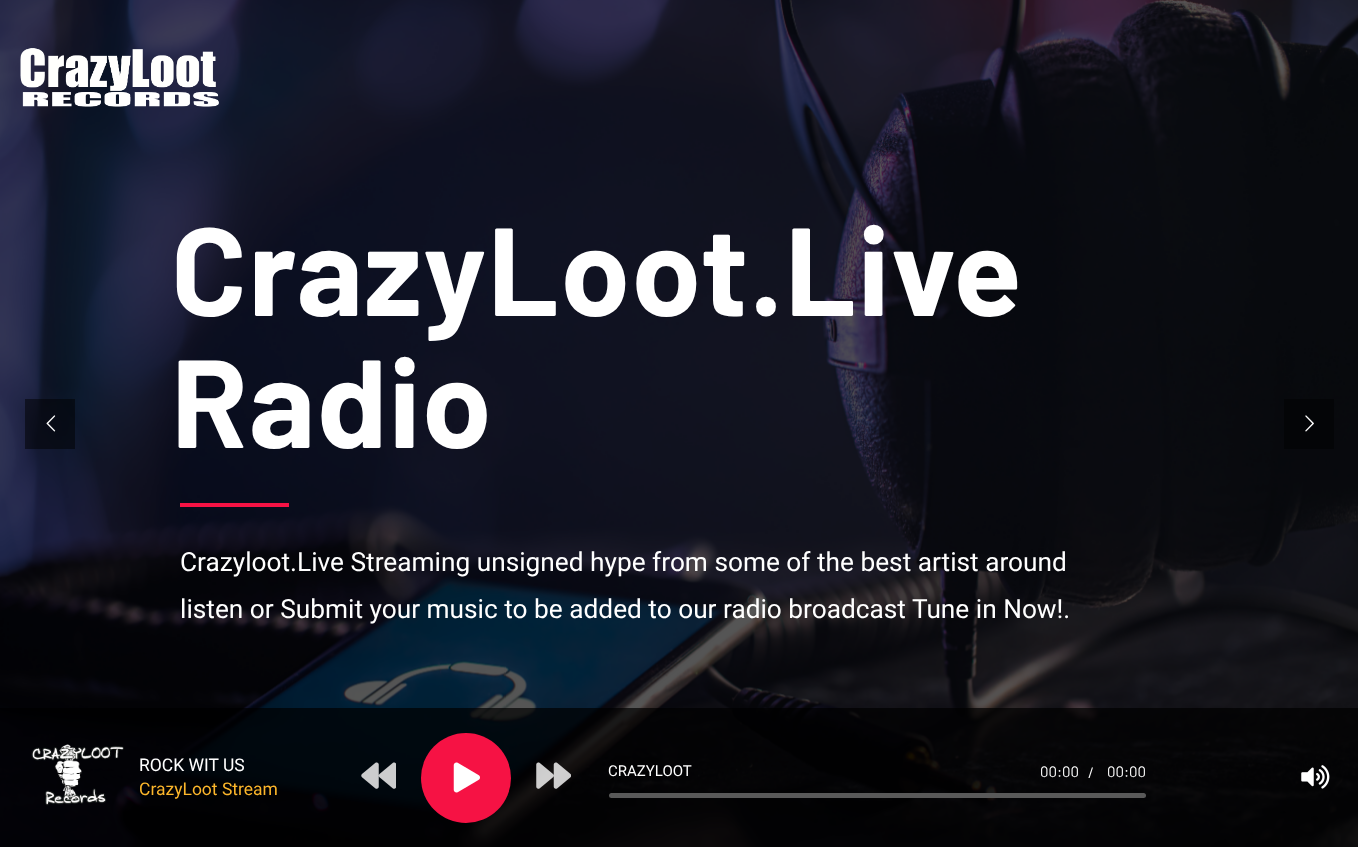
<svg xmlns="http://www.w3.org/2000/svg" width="1358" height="847">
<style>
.a{font:bold 125px Barlow;letter-spacing:1.4px;fill:#fff}
.b{font:26.25px Roboto;fill:#fff}
.c{font:17.5px Roboto;fill:#fff}
.d{font:17.5px Roboto;fill:#fcb62b}
.e{font:15px Roboto;fill:#fff}
.f{font:15px Barlow;fill:#fff}
</style>
<rect width="100%" height="100%" fill="#fff"/>
<image href="3.png" x="0" y="0" width="1358" height="847"/>
<image href="1.png" x="20" y="48" width="199" height="59"/>
<path fill="#00000080" d="M25 399h50v50H25z"/>
<image href="2.png" x="46" y="415" width="10" height="17"/>
<path fill="#f61244" d="M180 503h109v4H180z"/>
<path fill="#040507" d="M1284 399h50v50H1284z"/>
<image href="4.png" x="1305" y="415" width="9" height="17"/>
<path fill="#000000b3" d="M0 708h1358v139H0z"/>
<image href="5.png" x="31" y="744" width="93" height="62"/>
<image href="6.png" x="361" y="762" width="35" height="27"/>
<circle fill="#f61244" cx="466" cy="778" r="45"/>
<image href="7.png" x="453" y="762" width="27" height="31"/>
<image href="8.png" x="536" y="762" width="35" height="27"/>
<rect fill="#595959" x="609" y="793" width="537" height="5" rx="2.5"/>
<image href="9.png" x="1301" y="765" width="29" height="24"/>
<text class="a" x="171" y="316">CrazyLoot.Live</text>
<text class="a" x="171" y="448">Radio</text>
<text class="b" x="180" y="571">Crazyloot.Live Streaming unsigned hype from some of the best artist around</text>
<text class="b" x="180" y="618">listen or Submit your music to be added to our radio broadcast Tune in Now!.</text>
<text class="c" x="139" y="771">ROCK WIT US</text>
<text class="d" x="139" y="795">CrazyLoot Stream</text>
<text class="e" x="608" y="776">CRAZYLOOT</text>
<text class="f" x="1040" y="777">00:00</text>
<text class="f" x="1088" y="778">/</text>
<text class="f" x="1107" y="777">00:00</text>
</svg>
